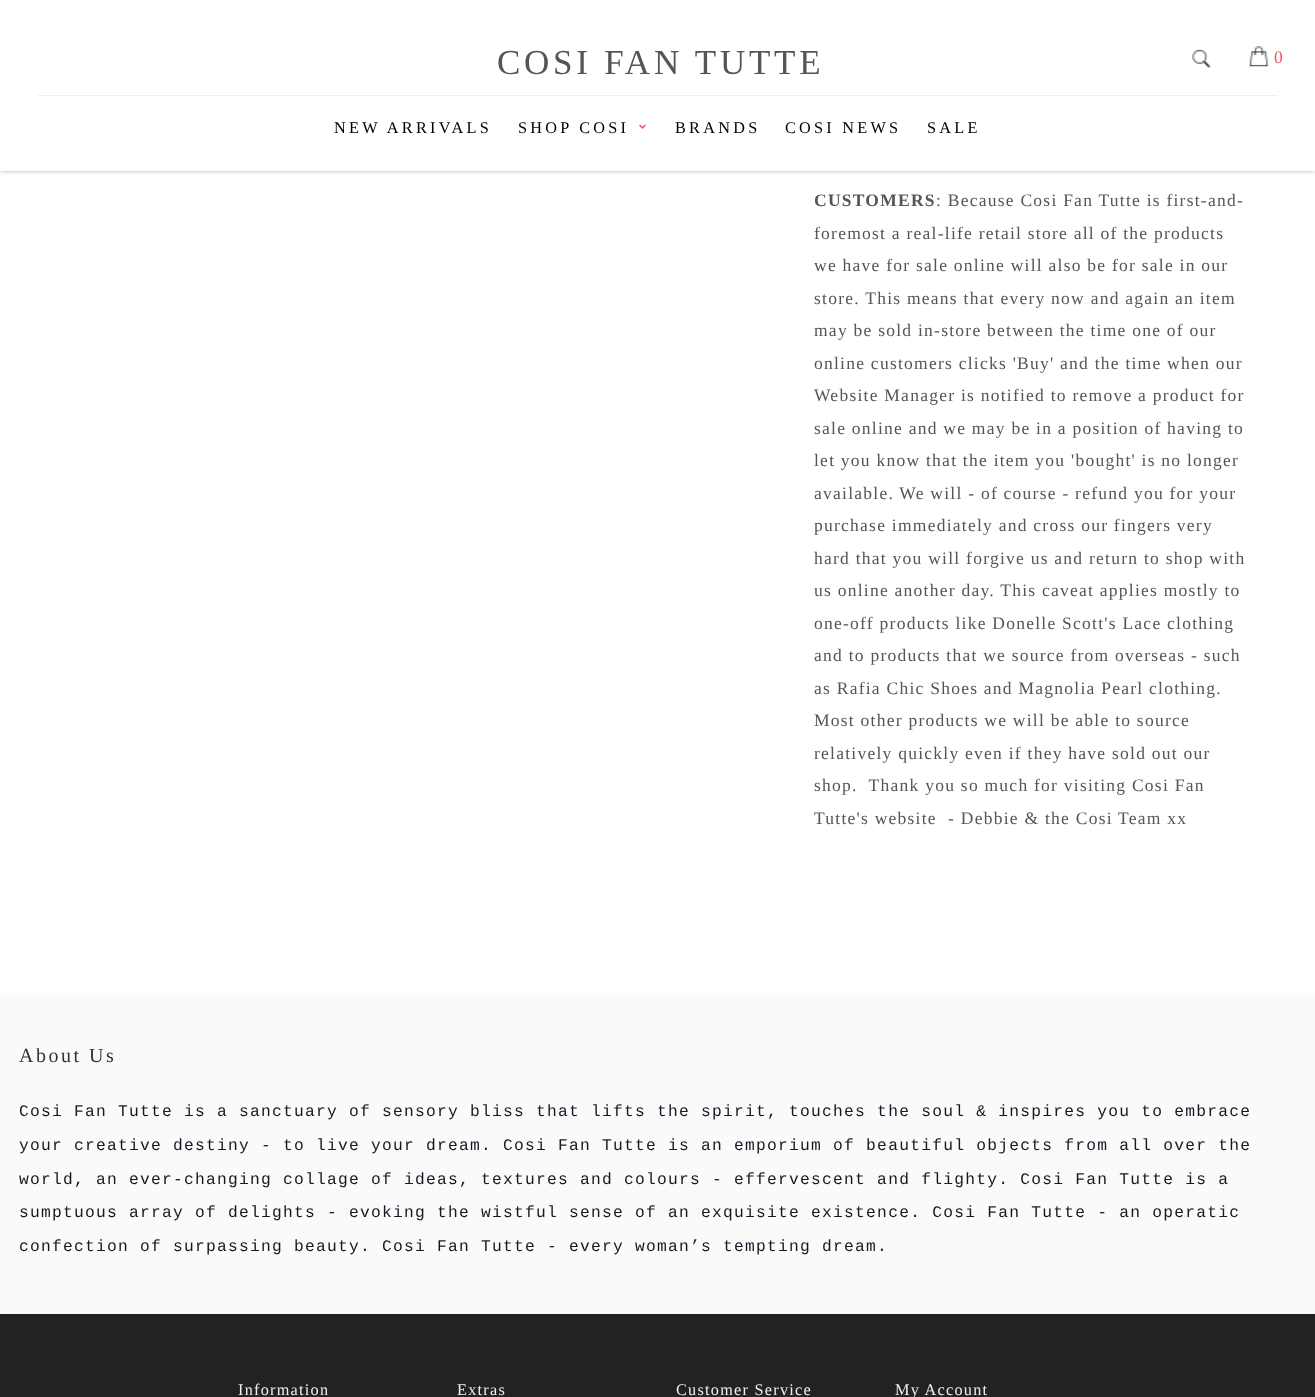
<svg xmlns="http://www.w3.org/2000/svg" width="1315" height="1397">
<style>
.a{font:35px Liberation Serif;letter-spacing:3.75px;fill:#555}
.b{font:17.5px Liberation Serif;letter-spacing:1.25px;fill:#f55064}
.c{font:16.25px Liberation Serif;letter-spacing:3.25px;fill:#000}
.d{font:bold 17.5px Liberation Serif;letter-spacing:1.25px;fill:#555}
.e{font:17.5px Liberation Serif;letter-spacing:1.25px;fill:#555}
.f{font:20px Liberation Serif;letter-spacing:2.5px;fill:#333}
.g{font:16.25px Liberation Mono;letter-spacing:1.25px;fill:#141823}
.h{font:16.25px Liberation Serif;letter-spacing:1.25px;fill:#eee}
</style>
<rect width="100%" height="100%" fill="#fff"/>
<path fill="#0000004d" filter="blur(2px)" d="M0 0h1315v171H0z"/>
<path fill="#fff" d="M0 0h1315v171H0z"/>
<image href="1.png" x="1192" y="49" width="19" height="19"/>
<image href="2.png" x="1249" y="46" width="20" height="21"/>
<path fill="#eee" d="M38 95h1240v1H38z"/>
<image href="3.png" x="639" y="124" width="7" height="5"/>
<path fill="#fafafa" d="M0 993h1315v321H0z"/>
<path fill="#222" d="M0 1314h1315v83H0z"/>
<text class="a" x="497" y="74">COSI FAN TUTTE</text>
<text class="b" x="1274" y="63">0</text>
<text class="c" x="334" y="133">NEW ARRIVALS</text>
<text class="c" x="518" y="133">SHOP COSI</text>
<text class="c" x="675" y="133">BRANDS</text>
<text class="c" x="785" y="133">COSI NEWS</text>
<text class="c" x="927" y="133">SALE</text>
<text class="d" x="814" y="206">CUSTOMERS</text>
<text class="e" x="936" y="206">: Because Cosi Fan Tutte is first-and-</text>
<text class="e" x="814" y="239">foremost a real-life retail store all of the products</text>
<text class="e" x="814" y="271">we have for sale online will also be for sale in our</text>
<text class="e" x="814" y="304">store. This means that every now and again an item</text>
<text class="e" x="814" y="336">may be sold in-store between the time one of our</text>
<text class="e" x="814" y="369">online customers clicks 'Buy' and the time when our</text>
<text class="e" x="814" y="401">Website Manager is notified to remove a product for</text>
<text class="e" x="814" y="434">sale online and we may be in a position of having to</text>
<text class="e" x="814" y="466">let you know that the item you 'bought' is no longer</text>
<text class="e" x="814" y="499">available. We will - of course - refund you for your</text>
<text class="e" x="814" y="531">purchase immediately and cross our fingers very</text>
<text class="e" x="814" y="564">hard that you will forgive us and return to shop with</text>
<text class="e" x="814" y="596">us online another day. This caveat applies mostly to</text>
<text class="e" x="814" y="629">one-off products like Donelle Scott's Lace clothing</text>
<text class="e" x="814" y="661">and to products that we source from overseas - such</text>
<text class="e" x="814" y="694">as Rafia Chic Shoes and Magnolia Pearl clothing.</text>
<text class="e" x="814" y="726">Most other products we will be able to source</text>
<text class="e" x="814" y="759">relatively quickly even if they have sold out our</text>
<text class="e" xml:space="preserve" x="814" y="791">shop.  Thank you so much for visiting Cosi Fan</text>
<text class="e" xml:space="preserve" x="814" y="824">Tutte's website  - Debbie &amp; the Cosi Team xx</text>
<text class="f" x="19" y="1062">About Us</text>
<text class="g" x="19" y="1116">Cosi Fan Tutte is a sanctuary of sensory bliss that lifts the spirit, touches the soul &amp; inspires you to embrace</text>
<text class="g" x="19" y="1150">your creative destiny - to live your dream. Cosi Fan Tutte is an emporium of beautiful objects from all over the</text>
<text class="g" x="19" y="1184">world, an ever-changing collage of ideas, textures and colours - effervescent and flighty. Cosi Fan Tutte is a</text>
<text class="g" x="19" y="1217">sumptuous array of delights - evoking the wistful sense of an exquisite existence. Cosi Fan Tutte - an operatic</text>
<text class="g" x="19" y="1251">confection of surpassing beauty. Cosi Fan Tutte - every woman’s tempting dream.</text>
<text class="h" x="238" y="1395">Information</text>
<text class="h" x="457" y="1395">Extras</text>
<text class="h" x="676" y="1395">Customer Service</text>
<text class="h" x="895" y="1395">My Account</text>
</svg>
